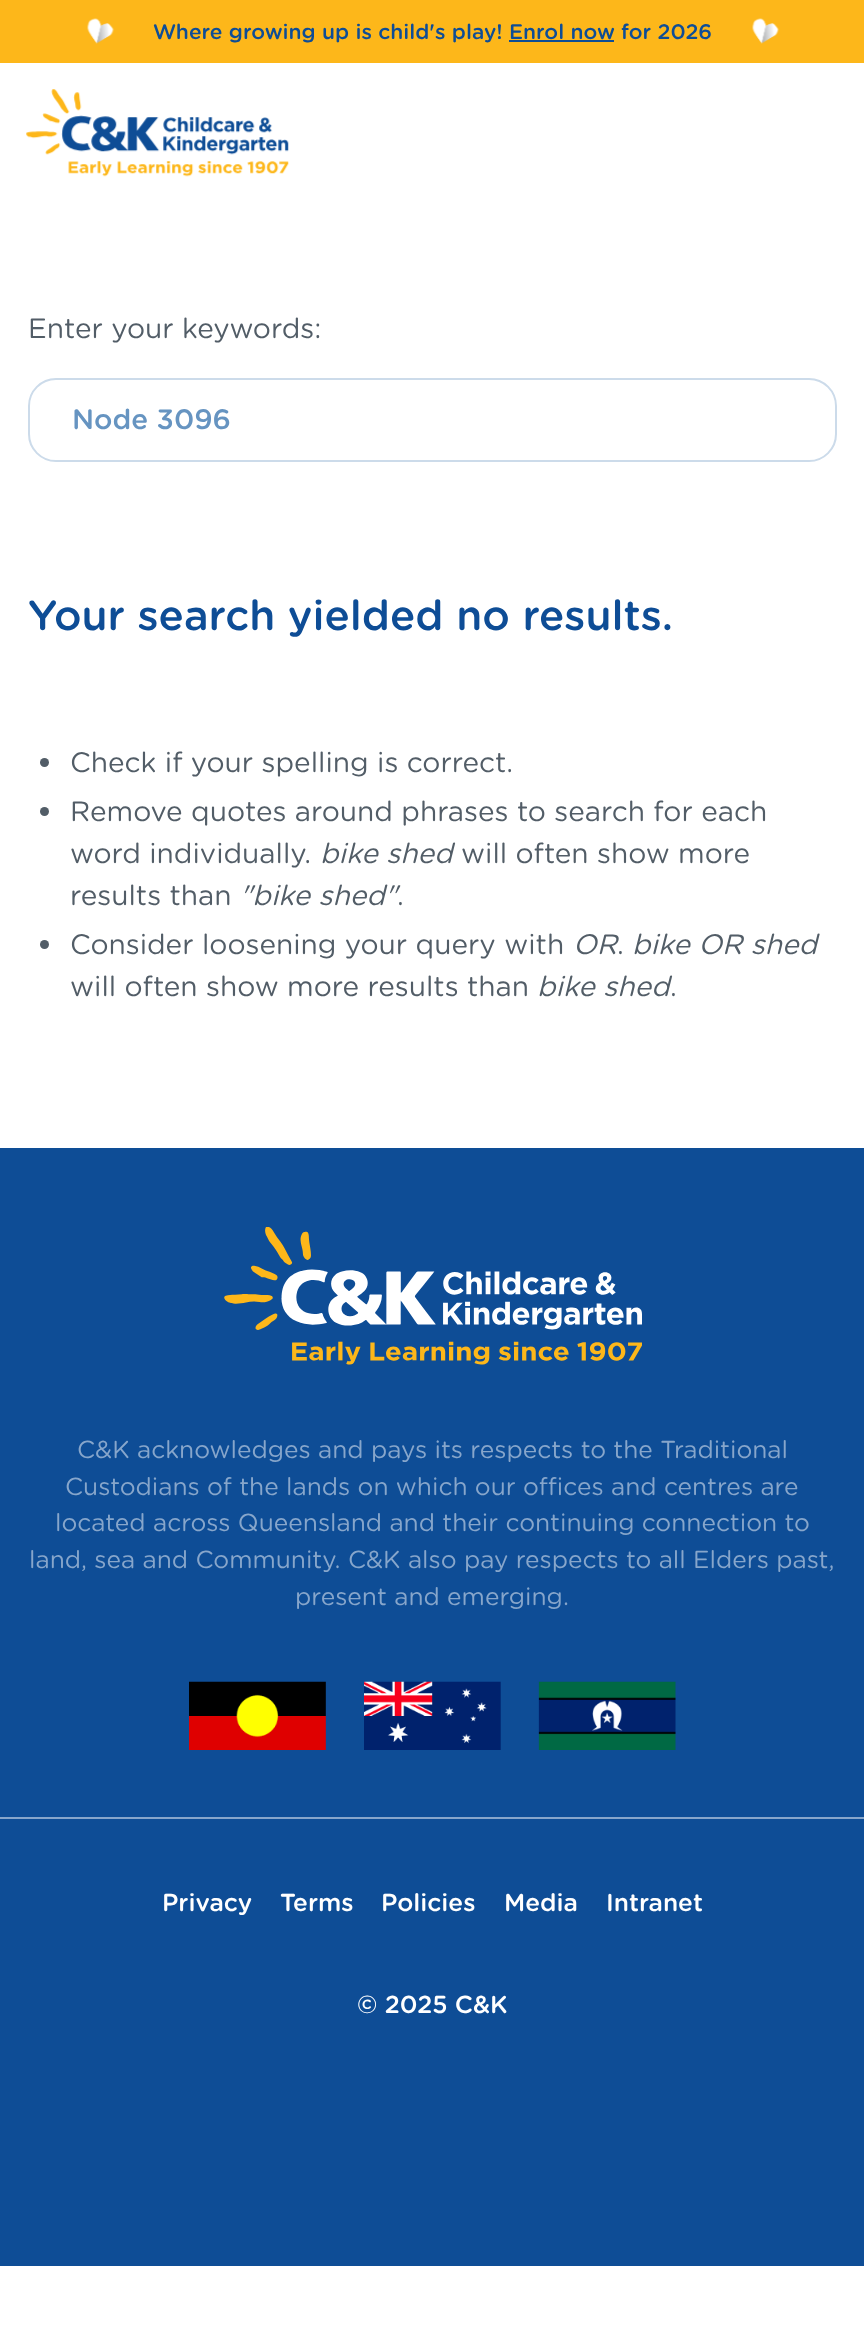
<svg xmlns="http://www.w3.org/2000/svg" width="864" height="2329">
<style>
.a{font:500 21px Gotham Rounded;fill:#0e4d96}
.b{font:28px Gotham Rounded;fill:#525d67}
.c{font:500 28px Gotham Rounded;fill:#6694c1}
.d{font:500 42px Gotham Rounded;fill:#0e4d96}
.e{font:italic 28px Gotham Rounded;fill:#525d67}
.f{font:24.5px Gotham Rounded;fill:#87a6cb}
.g{font:500 24.5px Gotham Rounded;fill:#fff}
</style>
<rect width="100%" height="100%" fill="#fff"/>
<path fill="#fdb71a" d="M0 0h864v63H0z"/>
<image href="1.png" x="87" y="18" width="28" height="26"/>
<path fill="#0e4d96" d="M509 40h105v2H509z"/>
<image href="2.png" x="752" y="18" width="28" height="26"/>
<image href="3.png" x="26" y="89" width="263" height="88"/>
<rect fill="none" stroke="#ccdbea" stroke-width="2" x="29" y="379" width="807" height="82" rx="27"/>
<circle fill="#525d67" cx="44.5" cy="762.5" r="4.5"/>
<circle fill="#525d67" cx="44.5" cy="811.5" r="4.5"/>
<circle fill="#525d67" cx="44.5" cy="944.5" r="4.5"/>
<path fill="#0e4d96" d="M0 1148h864v1118H0z"/>
<image href="4.png" x="224" y="1227" width="418" height="138"/>
<image href="5.png" x="189" y="1681" width="487" height="69"/>
<path fill="#87a6cb" d="M0 1817h864v2H0z"/>
<text class="a" x="153" y="39">Where growing up is child's play! Enrol now for 2026</text>
<text class="b" x="28" y="338">Enter your keywords:</text>
<text class="c" x="72" y="429">Node 3096</text>
<text class="d" x="28" y="630">Your search yielded no results.</text>
<text class="b" x="70" y="772">Check if your spelling is correct.</text>
<text class="b" x="70" y="821">Remove quotes around phrases to search for each</text>
<text class="b" x="70" y="863">word individually.</text>
<text class="e" x="320" y="863">bike shed</text>
<text class="b" x="461" y="863">will often show more</text>
<text class="b" x="70" y="905">results than</text>
<text class="e" x="240" y="905">"bike shed"</text>
<text class="b" x="397" y="905">.</text>
<text class="b" x="70" y="954">Consider loosening your query with</text>
<text class="e" x="573" y="954">OR</text>
<text class="e" x="632" y="954">bike OR shed</text>
<text class="b" x="617" y="954">.</text>
<text class="b" x="70" y="996">will often show more results than</text>
<text class="e" x="537" y="996">bike shed</text>
<text class="b" x="670" y="996">.</text>
<text class="f" x="77" y="1458">C&amp;K acknowledges and pays its respects to the Traditional</text>
<text class="f" x="65" y="1495">Custodians of the lands on which our offices and centres are</text>
<text class="f" x="55" y="1531">located across Queensland and their continuing connection to</text>
<text class="f" x="29" y="1568">land, sea and Community. C&amp;K also pay respects to all Elders past,</text>
<text class="f" x="295" y="1605">present and emerging.</text>
<text class="g" x="162" y="1911">Privacy</text>
<text class="g" x="280" y="1911">Terms</text>
<text class="g" x="381" y="1911">Policies</text>
<text class="g" x="504" y="1911">Media</text>
<text class="g" x="606" y="1911">Intranet</text>
<text class="g" x="357" y="2013">© 2025 C&amp;K</text>
</svg>
